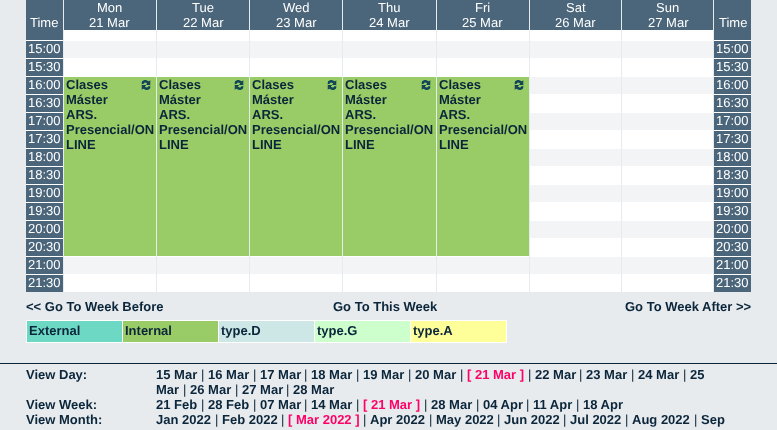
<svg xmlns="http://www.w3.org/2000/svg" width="777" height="430">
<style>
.a{font:13px Liberation Sans;fill:#fff}
.b{font:bold 13px Liberation Sans;fill:#0b263b}
.c{font:13px Liberation Sans;fill:#0b263b}
.d{font:bold 13px Liberation Sans;fill:#f06}
</style>
<rect width="100%" height="100%" fill="#e7ebee"/>
<path fill="#4b667b" d="M26 0h37v30H26z"/>
<path fill="#4b667b" d="M64 0h92v30H64z"/>
<path fill="#4b667b" d="M157 0h92v30H157z"/>
<path fill="#4b667b" d="M250 0h92v30H250z"/>
<path fill="#4b667b" d="M343 0h93v30H343z"/>
<path fill="#4b667b" d="M437 0h92v30H437z"/>
<path fill="#4b667b" d="M530 0h91v30H530z"/>
<path fill="#4b667b" d="M622 0h91v30H622z"/>
<path fill="#4b667b" d="M714 0h37v30H714z"/>
<path fill="#4b667b" d="M26 30h37v10H26z"/>
<path fill="#fff" d="M64 30h92v10H64z"/>
<path fill="#fff" d="M157 30h92v10H157z"/>
<path fill="#fff" d="M250 30h92v10H250z"/>
<path fill="#fff" d="M343 30h93v10H343z"/>
<path fill="#fff" d="M437 30h92v10H437z"/>
<path fill="#fff" d="M530 30h91v10H530z"/>
<path fill="#fff" d="M622 30h91v10H622z"/>
<path fill="#4b667b" d="M714 30h37v10H714z"/>
<path fill="#4b667b" d="M26 41h37v17H26z"/>
<path fill="#fff" d="M26 40h725v1H26z"/>
<path fill="#f2f4f6" d="M64 41h92v17H64z"/>
<path fill="#e7ebee" d="M63 40h1v1H63z"/>
<path fill="#f2f4f6" d="M157 41h92v17H157z"/>
<path fill="#e7ebee" d="M156 40h1v1H156z"/>
<path fill="#f2f4f6" d="M250 41h92v17H250z"/>
<path fill="#e7ebee" d="M249 40h1v1H249z"/>
<path fill="#f2f4f6" d="M343 41h93v17H343z"/>
<path fill="#e7ebee" d="M342 40h1v1H342z"/>
<path fill="#f2f4f6" d="M437 41h92v17H437z"/>
<path fill="#e7ebee" d="M436 40h1v1H436z"/>
<path fill="#f2f4f6" d="M530 41h91v17H530z"/>
<path fill="#e7ebee" d="M529 40h1v1H529z"/>
<path fill="#f2f4f6" d="M622 41h91v17H622z"/>
<path fill="#e7ebee" d="M621 40h1v1H621z"/>
<path fill="#4b667b" d="M714 41h37v17H714z"/>
<path fill="#e7ebee" d="M713 40h1v1H713z"/>
<path fill="#4b667b" d="M26 59h37v17H26z"/>
<path fill="#fff" d="M26 58h37v1H26z"/>
<path fill="#fff" d="M64 58h92v18H64z"/>
<path fill="#fff" d="M157 58h92v18H157z"/>
<path fill="#fff" d="M250 58h92v18H250z"/>
<path fill="#fff" d="M343 58h93v18H343z"/>
<path fill="#fff" d="M437 58h92v18H437z"/>
<path fill="#fff" d="M530 58h91v18H530z"/>
<path fill="#fff" d="M622 58h91v18H622z"/>
<path fill="#4b667b" d="M714 59h37v17H714z"/>
<path fill="#fff" d="M713 58h38v1H713z"/>
<path fill="#e7ebee" d="M713 58h1v1H713z"/>
<path fill="#4b667b" d="M26 77h37v17H26z"/>
<path fill="#fff" d="M26 76h725v1H26z"/>
<path fill="#9c6" d="M64 77h92v179H64z"/>
<path fill="#e7ebee" d="M63 76h1v1H63z"/>
<image href="1.png" x="141" y="80" width="10" height="10"/>
<path fill="#9c6" d="M157 77h92v179H157z"/>
<path fill="#e7ebee" d="M156 76h1v1H156z"/>
<image href="1.png" x="234" y="80" width="10" height="10"/>
<path fill="#9c6" d="M250 77h92v179H250z"/>
<path fill="#e7ebee" d="M249 76h1v1H249z"/>
<image href="1.png" x="327" y="80" width="10" height="10"/>
<path fill="#9c6" d="M343 77h93v179H343z"/>
<path fill="#e7ebee" d="M342 76h1v1H342z"/>
<image href="1.png" x="421" y="80" width="10" height="10"/>
<path fill="#9c6" d="M437 77h92v179H437z"/>
<path fill="#e7ebee" d="M436 76h1v1H436z"/>
<image href="1.png" x="514" y="80" width="10" height="10"/>
<path fill="#f2f4f6" d="M530 77h91v17H530z"/>
<path fill="#e7ebee" d="M529 76h1v1H529z"/>
<path fill="#f2f4f6" d="M622 77h91v17H622z"/>
<path fill="#e7ebee" d="M621 76h1v1H621z"/>
<path fill="#4b667b" d="M714 77h37v17H714z"/>
<path fill="#e7ebee" d="M713 76h1v1H713z"/>
<path fill="#4b667b" d="M26 95h37v17H26z"/>
<path fill="#fff" d="M26 94h37v1H26z"/>
<path fill="#fff" d="M530 94h91v18H530z"/>
<path fill="#fff" d="M622 94h91v18H622z"/>
<path fill="#4b667b" d="M714 95h37v17H714z"/>
<path fill="#fff" d="M713 94h38v1H713z"/>
<path fill="#e7ebee" d="M713 94h1v1H713z"/>
<path fill="#f2f4f6" d="M530 113h91v17H530z"/>
<path fill="#fff" d="M529 112h222v1H529z"/>
<path fill="#e7ebee" d="M529 112h1v1H529z"/>
<path fill="#4b667b" d="M26 113h37v17H26z"/>
<path fill="#fff" d="M26 112h37v1H26z"/>
<path fill="#f2f4f6" d="M622 113h91v17H622z"/>
<path fill="#e7ebee" d="M621 112h1v1H621z"/>
<path fill="#4b667b" d="M714 113h37v17H714z"/>
<path fill="#e7ebee" d="M713 112h1v1H713z"/>
<path fill="#4b667b" d="M26 131h37v17H26z"/>
<path fill="#fff" d="M26 130h37v1H26z"/>
<path fill="#fff" d="M530 130h91v18H530z"/>
<path fill="#fff" d="M622 130h91v18H622z"/>
<path fill="#4b667b" d="M714 131h37v17H714z"/>
<path fill="#fff" d="M713 130h38v1H713z"/>
<path fill="#e7ebee" d="M713 130h1v1H713z"/>
<path fill="#f2f4f6" d="M530 149h91v17H530z"/>
<path fill="#fff" d="M529 148h222v1H529z"/>
<path fill="#e7ebee" d="M529 148h1v1H529z"/>
<path fill="#4b667b" d="M26 149h37v17H26z"/>
<path fill="#fff" d="M26 148h37v1H26z"/>
<path fill="#f2f4f6" d="M622 149h91v17H622z"/>
<path fill="#e7ebee" d="M621 148h1v1H621z"/>
<path fill="#4b667b" d="M714 149h37v17H714z"/>
<path fill="#e7ebee" d="M713 148h1v1H713z"/>
<path fill="#4b667b" d="M26 167h37v17H26z"/>
<path fill="#fff" d="M26 166h37v1H26z"/>
<path fill="#fff" d="M530 166h91v18H530z"/>
<path fill="#fff" d="M622 166h91v18H622z"/>
<path fill="#4b667b" d="M714 167h37v17H714z"/>
<path fill="#fff" d="M713 166h38v1H713z"/>
<path fill="#e7ebee" d="M713 166h1v1H713z"/>
<path fill="#f2f4f6" d="M530 185h91v17H530z"/>
<path fill="#fff" d="M529 184h222v1H529z"/>
<path fill="#e7ebee" d="M529 184h1v1H529z"/>
<path fill="#4b667b" d="M26 185h37v17H26z"/>
<path fill="#fff" d="M26 184h37v1H26z"/>
<path fill="#f2f4f6" d="M622 185h91v17H622z"/>
<path fill="#e7ebee" d="M621 184h1v1H621z"/>
<path fill="#4b667b" d="M714 185h37v17H714z"/>
<path fill="#e7ebee" d="M713 184h1v1H713z"/>
<path fill="#4b667b" d="M26 203h37v17H26z"/>
<path fill="#fff" d="M26 202h37v1H26z"/>
<path fill="#fff" d="M530 202h91v18H530z"/>
<path fill="#fff" d="M622 202h91v18H622z"/>
<path fill="#4b667b" d="M714 203h37v17H714z"/>
<path fill="#fff" d="M713 202h38v1H713z"/>
<path fill="#e7ebee" d="M713 202h1v1H713z"/>
<path fill="#f2f4f6" d="M530 221h91v17H530z"/>
<path fill="#fff" d="M529 220h222v1H529z"/>
<path fill="#e7ebee" d="M529 220h1v1H529z"/>
<path fill="#4b667b" d="M26 221h37v17H26z"/>
<path fill="#fff" d="M26 220h37v1H26z"/>
<path fill="#f2f4f6" d="M622 221h91v17H622z"/>
<path fill="#e7ebee" d="M621 220h1v1H621z"/>
<path fill="#4b667b" d="M714 221h37v17H714z"/>
<path fill="#e7ebee" d="M713 220h1v1H713z"/>
<path fill="#4b667b" d="M26 239h37v17H26z"/>
<path fill="#fff" d="M26 238h37v1H26z"/>
<path fill="#fff" d="M530 238h91v18H530z"/>
<path fill="#fff" d="M622 238h91v18H622z"/>
<path fill="#4b667b" d="M714 239h37v17H714z"/>
<path fill="#fff" d="M713 238h38v1H713z"/>
<path fill="#e7ebee" d="M713 238h1v1H713z"/>
<path fill="#4b667b" d="M26 257h37v17H26z"/>
<path fill="#fff" d="M26 256h725v1H26z"/>
<path fill="#f2f4f6" d="M64 257h92v17H64z"/>
<path fill="#e7ebee" d="M63 256h1v1H63z"/>
<path fill="#f2f4f6" d="M157 257h92v17H157z"/>
<path fill="#e7ebee" d="M156 256h1v1H156z"/>
<path fill="#f2f4f6" d="M250 257h92v17H250z"/>
<path fill="#e7ebee" d="M249 256h1v1H249z"/>
<path fill="#f2f4f6" d="M343 257h93v17H343z"/>
<path fill="#e7ebee" d="M342 256h1v1H342z"/>
<path fill="#f2f4f6" d="M437 257h92v17H437z"/>
<path fill="#e7ebee" d="M436 256h1v1H436z"/>
<path fill="#f2f4f6" d="M530 257h91v17H530z"/>
<path fill="#e7ebee" d="M529 256h1v1H529z"/>
<path fill="#f2f4f6" d="M622 257h91v17H622z"/>
<path fill="#e7ebee" d="M621 256h1v1H621z"/>
<path fill="#4b667b" d="M714 257h37v17H714z"/>
<path fill="#e7ebee" d="M713 256h1v1H713z"/>
<path fill="#4b667b" d="M26 275h37v17H26z"/>
<path fill="#fff" d="M26 274h37v1H26z"/>
<path fill="#fff" d="M64 274h92v18H64z"/>
<path fill="#fff" d="M157 274h92v18H157z"/>
<path fill="#fff" d="M250 274h92v18H250z"/>
<path fill="#fff" d="M343 274h93v18H343z"/>
<path fill="#fff" d="M437 274h92v18H437z"/>
<path fill="#fff" d="M530 274h91v18H530z"/>
<path fill="#fff" d="M622 274h91v18H622z"/>
<path fill="#4b667b" d="M714 275h37v17H714z"/>
<path fill="#fff" d="M713 274h38v1H713z"/>
<path fill="#e7ebee" d="M713 274h1v1H713z"/>
<path fill="#6dd9c4" d="M27 321h95v21H27z"/>
<path fill="#fff" d="M410 320h97v1H410z"/>
<path fill="#fff" d="M506 320h1v23H506z"/>
<path fill="#fff" d="M410 342h97v1H410z"/>
<path fill="#fff" d="M410 320h1v23H410z"/>
<path fill="#fff" d="M314 320h97v1H314z"/>
<path fill="#fff" d="M314 342h97v1H314z"/>
<path fill="#fff" d="M314 320h1v23H314z"/>
<path fill="#fff" d="M218 320h97v1H218z"/>
<path fill="#fff" d="M218 342h97v1H218z"/>
<path fill="#fff" d="M218 320h1v23H218z"/>
<path fill="#fff" d="M122 320h97v1H122z"/>
<path fill="#fff" d="M122 342h97v1H122z"/>
<path fill="#fff" d="M122 320h1v23H122z"/>
<path fill="#fff" d="M26 320h97v1H26z"/>
<path fill="#fff" d="M26 342h97v1H26z"/>
<path fill="#fff" d="M26 320h1v23H26z"/>
<path fill="#9c6" d="M123 321h95v21H123z"/>
<path fill="#cde6e6" d="M219 321h95v21H219z"/>
<path fill="#cfc" d="M315 321h95v21H315z"/>
<path fill="#ff9" d="M411 321h95v21H411z"/>
<path fill="#0b263b" d="M0 363h777v1H0z"/>
<text class="a" x="30" y="27">Time</text>
<text class="a" x="97" y="12">Mon</text>
<text class="a" x="89" y="27">21 Mar</text>
<text class="a" x="192" y="12">Tue</text>
<text class="a" x="183" y="27">22 Mar</text>
<text class="a" x="283" y="12">Wed</text>
<text class="a" x="276" y="27">23 Mar</text>
<text class="a" x="378" y="12">Thu</text>
<text class="a" x="369" y="27">24 Mar</text>
<text class="a" x="475" y="12">Fri</text>
<text class="a" x="462" y="27">25 Mar</text>
<text class="a" x="566" y="12">Sat</text>
<text class="a" x="555" y="27">26 Mar</text>
<text class="a" x="656" y="12">Sun</text>
<text class="a" x="648" y="27">27 Mar</text>
<text class="a" x="719" y="27">Time</text>
<text class="a" x="28" y="53">15:00</text>
<text class="a" x="716" y="53">15:00</text>
<text class="a" x="28" y="71">15:30</text>
<text class="a" x="716" y="71">15:30</text>
<text class="a" x="28" y="89">16:00</text>
<text class="b" x="66" y="89">Clases</text>
<text class="b" x="66" y="104">Máster</text>
<text class="b" x="66" y="119">ARS.</text>
<text class="b" x="66" y="134">Presencial/ON</text>
<text class="b" x="66" y="149">LINE</text>
<text class="b" x="159" y="89">Clases</text>
<text class="b" x="159" y="104">Máster</text>
<text class="b" x="159" y="119">ARS.</text>
<text class="b" x="159" y="134">Presencial/ON</text>
<text class="b" x="159" y="149">LINE</text>
<text class="b" x="252" y="89">Clases</text>
<text class="b" x="252" y="104">Máster</text>
<text class="b" x="252" y="119">ARS.</text>
<text class="b" x="252" y="134">Presencial/ON</text>
<text class="b" x="252" y="149">LINE</text>
<text class="b" x="345" y="89">Clases</text>
<text class="b" x="345" y="104">Máster</text>
<text class="b" x="345" y="119">ARS.</text>
<text class="b" x="345" y="134">Presencial/ON</text>
<text class="b" x="345" y="149">LINE</text>
<text class="b" x="439" y="89">Clases</text>
<text class="b" x="439" y="104">Máster</text>
<text class="b" x="439" y="119">ARS.</text>
<text class="b" x="439" y="134">Presencial/ON</text>
<text class="b" x="439" y="149">LINE</text>
<text class="a" x="716" y="89">16:00</text>
<text class="a" x="28" y="107">16:30</text>
<text class="a" x="716" y="107">16:30</text>
<text class="a" x="28" y="125">17:00</text>
<text class="a" x="716" y="125">17:00</text>
<text class="a" x="28" y="143">17:30</text>
<text class="a" x="716" y="143">17:30</text>
<text class="a" x="28" y="161">18:00</text>
<text class="a" x="716" y="161">18:00</text>
<text class="a" x="28" y="179">18:30</text>
<text class="a" x="716" y="179">18:30</text>
<text class="a" x="28" y="197">19:00</text>
<text class="a" x="716" y="197">19:00</text>
<text class="a" x="28" y="215">19:30</text>
<text class="a" x="716" y="215">19:30</text>
<text class="a" x="28" y="233">20:00</text>
<text class="a" x="716" y="233">20:00</text>
<text class="a" x="28" y="251">20:30</text>
<text class="a" x="716" y="251">20:30</text>
<text class="a" x="28" y="269">21:00</text>
<text class="a" x="716" y="269">21:00</text>
<text class="a" x="28" y="287">21:30</text>
<text class="a" x="716" y="287">21:30</text>
<text class="b" x="26" y="311">&lt;&lt; Go To Week Before</text>
<text class="b" x="333" y="311">Go To This Week</text>
<text class="b" x="625" y="311">Go To Week After &gt;&gt;</text>
<text class="b" x="29" y="335">External</text>
<text class="b" x="125" y="335">Internal</text>
<text class="b" x="221" y="335">type.D</text>
<text class="b" x="317" y="335">type.G</text>
<text class="b" x="413" y="335">type.A</text>
<text class="b" x="26" y="379">View Day:</text>
<text class="b" x="156" y="379">15 Mar</text>
<text class="c" x="201" y="379">|</text>
<text class="b" x="208" y="379">16 Mar</text>
<text class="c" x="253" y="379">|</text>
<text class="b" x="260" y="379">17 Mar</text>
<text class="c" x="304" y="379">|</text>
<text class="b" x="311" y="379">18 Mar</text>
<text class="c" x="356" y="379">|</text>
<text class="b" x="363" y="379">19 Mar</text>
<text class="c" x="408" y="379">|</text>
<text class="b" x="415" y="379">20 Mar</text>
<text class="c" x="460" y="379">|</text>
<text class="d" x="467" y="379">[ 21 Mar ]</text>
<text class="c" x="528" y="379">|</text>
<text class="b" x="535" y="379">22 Mar</text>
<text class="c" x="579" y="379">|</text>
<text class="b" x="586" y="379">23 Mar</text>
<text class="c" x="631" y="379">|</text>
<text class="b" x="638" y="379">24 Mar</text>
<text class="c" x="683" y="379">|</text>
<text class="b" x="690" y="379">25</text>
<text class="b" x="156" y="394">Mar</text>
<text class="c" x="183" y="394">|</text>
<text class="b" x="190" y="394">26 Mar</text>
<text class="c" x="235" y="394">|</text>
<text class="b" x="242" y="394">27 Mar</text>
<text class="c" x="286" y="394">|</text>
<text class="b" x="293" y="394">28 Mar</text>
<text class="b" x="26" y="409">View Week:</text>
<text class="b" x="156" y="409">21 Feb</text>
<text class="c" x="201" y="409">|</text>
<text class="b" x="208" y="409">28 Feb</text>
<text class="c" x="253" y="409">|</text>
<text class="b" x="260" y="409">07 Mar</text>
<text class="c" x="304" y="409">|</text>
<text class="b" x="311" y="409">14 Mar</text>
<text class="c" x="356" y="409">|</text>
<text class="d" x="363" y="409">[ 21 Mar ]</text>
<text class="c" x="424" y="409">|</text>
<text class="b" x="431" y="409">28 Mar</text>
<text class="c" x="476" y="409">|</text>
<text class="b" x="483" y="409">04 Apr</text>
<text class="c" x="526" y="409">|</text>
<text class="b" x="533" y="409">11 Apr</text>
<text class="c" x="576" y="409">|</text>
<text class="b" x="583" y="409">18 Apr</text>
<text class="b" x="26" y="424">View Month:</text>
<text class="b" x="156" y="424">Jan 2022</text>
<text class="c" x="215" y="424">|</text>
<text class="b" x="222" y="424">Feb 2022</text>
<text class="c" x="281" y="424">|</text>
<text class="d" x="288" y="424">[ Mar 2022 ]</text>
<text class="c" x="363" y="424">|</text>
<text class="b" x="370" y="424">Apr 2022</text>
<text class="c" x="429" y="424">|</text>
<text class="b" x="436" y="424">May 2022</text>
<text class="c" x="497" y="424">|</text>
<text class="b" x="504" y="424">Jun 2022</text>
<text class="c" x="563" y="424">|</text>
<text class="b" x="570" y="424">Jul 2022</text>
<text class="c" x="625" y="424">|</text>
<text class="b" x="632" y="424">Aug 2022</text>
<text class="c" x="694" y="424">|</text>
<text class="b" x="701" y="424">Sep</text>
</svg>
